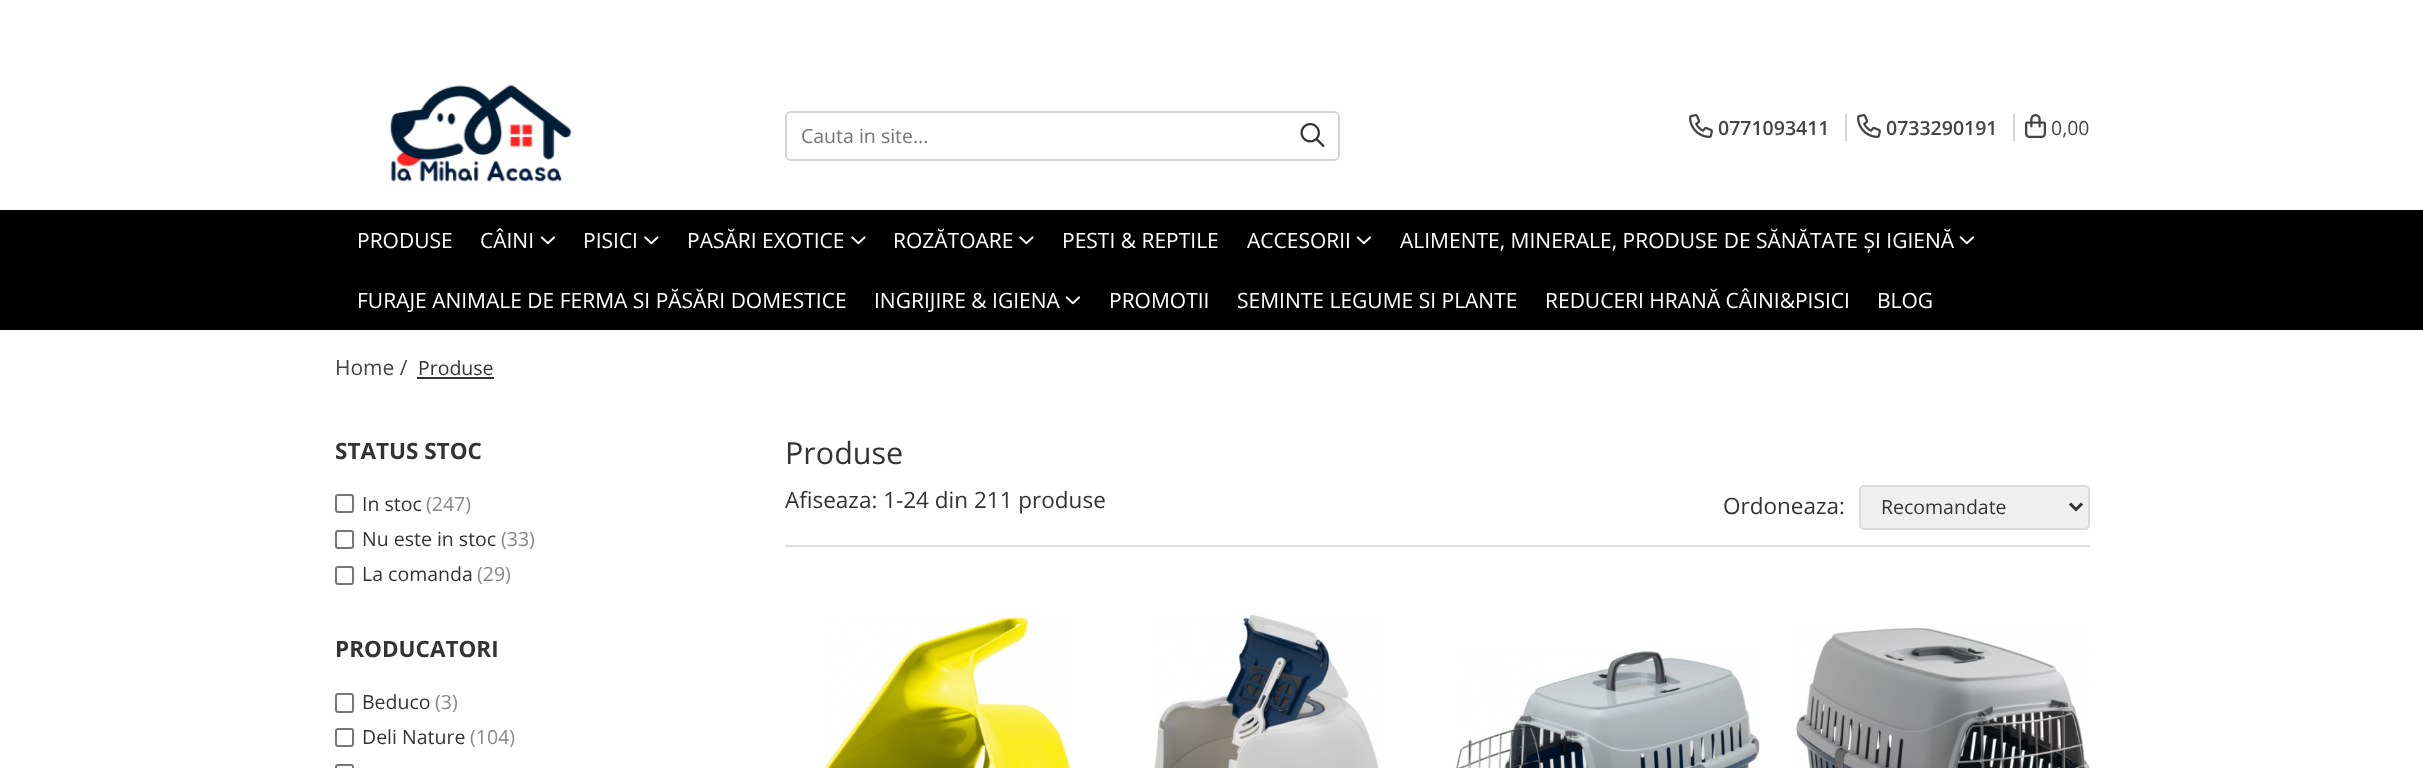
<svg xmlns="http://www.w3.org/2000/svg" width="2423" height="768">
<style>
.a{font:19.5px Open Sans;fill:#757575}
.b{font:600 19.5px Open Sans;fill:#444}
.c{font:19.5px Open Sans;fill:#444}
.d{font:21px Open Sans;fill:#fff}
.e{font:21px Open Sans;fill:#444}
.f{font:19.5px Open Sans;fill:#333}
.g{font:bold 22.5px Open Sans;fill:#333}
.h{font:19.5px Open Sans;fill:#888}
.i{font:30.5px Open Sans;fill:#333}
.j{font:22.5px Open Sans;fill:#333}
</style>
<rect width="100%" height="100%" fill="#fff"/>
<image href="1.png" x="390" y="84" width="182" height="98"/>
<rect fill="none" stroke="#d5d5d5" stroke-width="2" x="786" y="112" width="553" height="48" rx="5"/>
<image href="2.png" x="1300" y="123" width="25" height="24"/>
<image href="3.png" x="1689" y="114" width="24" height="24"/>
<path fill="#d5d5d5" d="M1845 114h2v27H1845z"/>
<image href="3.png" x="1857" y="114" width="24" height="24"/>
<path fill="#d5d5d5" d="M2013 114h2v27H2013z"/>
<image href="4.png" x="2025" y="114" width="21" height="24"/>
<path fill="#000" d="M0 210h2423v120H0z"/>
<image href="5.png" x="540" y="236" width="16" height="9"/>
<image href="6.png" x="644" y="236" width="15" height="9"/>
<image href="6.png" x="851" y="236" width="15" height="9"/>
<image href="6.png" x="1019" y="236" width="15" height="9"/>
<image href="5.png" x="1356" y="236" width="16" height="9"/>
<image href="5.png" x="1959" y="236" width="16" height="9"/>
<image href="5.png" x="1065" y="296" width="16" height="9"/>
<path fill="#333" d="M417 377h77v2H417z"/>
<rect fill="none" stroke="#767676" stroke-width="2" x="336" y="495" width="17" height="17" rx="2"/>
<rect fill="none" stroke="#767676" stroke-width="2" x="336" y="531" width="17" height="17" rx="2"/>
<rect fill="none" stroke="#767676" stroke-width="2" x="336" y="567" width="17" height="17" rx="2"/>
<rect fill="none" stroke="#767676" stroke-width="2" x="336" y="694" width="17" height="18" rx="2"/>
<rect fill="none" stroke="#767676" stroke-width="2" x="336" y="729" width="17" height="17" rx="2"/>
<rect fill="none" stroke="#767676" stroke-width="2" x="336" y="765" width="17" height="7" rx="2"/>
<path fill="#dfdfdf" d="M785 545h1305v2H785z"/>
<rect fill="#efefef" stroke="#dbdbdb" stroke-width="2" x="1860" y="486" width="229" height="43" rx="4"/>
<path fill="none" stroke="#333" stroke-width="3" d="M2070 503.5l6 6l6-6"/>
<image href="7.png" x="823" y="615" width="249" height="153"/>
<image href="8.png" x="1154" y="614" width="225" height="154"/>
<image href="9.png" x="1455" y="651" width="305" height="117"/>
<image href="10.png" x="1796" y="627" width="294" height="141"/>
<text class="a" x="801" y="143">Cauta in site...</text>
<text class="b" x="1718" y="135">0771093411</text>
<text class="b" x="1886" y="135">0733290191</text>
<text class="c" x="2051" y="135">0,00</text>
<text class="d" x="357" y="248">PRODUSE</text>
<text class="d" x="480" y="248">CÂINI</text>
<text class="d" x="583" y="248">PISICI</text>
<text class="d" x="687" y="248">PASĂRI EXOTICE</text>
<text class="d" x="893" y="248">ROZĂTOARE</text>
<text class="d" x="1062" y="248">PESTI &amp; REPTILE</text>
<text class="d" x="1247" y="248">ACCESORII</text>
<text class="d" x="1400" y="248">ALIMENTE, MINERALE, PRODUSE DE SĂNĂTATE ȘI IGIENĂ</text>
<text class="d" x="357" y="308">FURAJE ANIMALE DE FERMA SI PĂSĂRI DOMESTICE</text>
<text class="d" x="874" y="308">INGRIJIRE &amp; IGIENA</text>
<text class="d" x="1109" y="308">PROMOTII</text>
<text class="d" x="1237" y="308">SEMINTE LEGUME SI PLANTE</text>
<text class="d" x="1545" y="308">REDUCERI HRANĂ CÂINI&amp;PISICI</text>
<text class="d" x="1877" y="308">BLOG</text>
<text class="e" x="335" y="375">Home /</text>
<text class="f" x="418" y="375">Produse</text>
<text class="g" x="335" y="459">STATUS STOC</text>
<text class="f" x="362" y="511">In stoc</text>
<text class="h" x="426" y="511">(247)</text>
<text class="f" x="362" y="546">Nu este in stoc</text>
<text class="h" x="501" y="546">(33)</text>
<text class="f" x="362" y="581">La comanda</text>
<text class="h" x="477" y="581">(29)</text>
<text class="g" x="335" y="657">PRODUCATORI</text>
<text class="f" x="362" y="709">Beduco</text>
<text class="h" x="435" y="709">(3)</text>
<text class="f" x="362" y="744">Deli Nature</text>
<text class="h" x="470" y="744">(104)</text>
<text class="i" x="785" y="464">Produse</text>
<text class="j" x="785" y="508">Afiseaza: 1-24 din 211 produse</text>
<text class="j" x="1723" y="514">Ordoneaza:</text>
<text class="f" x="1881" y="514">Recomandate</text>
</svg>
